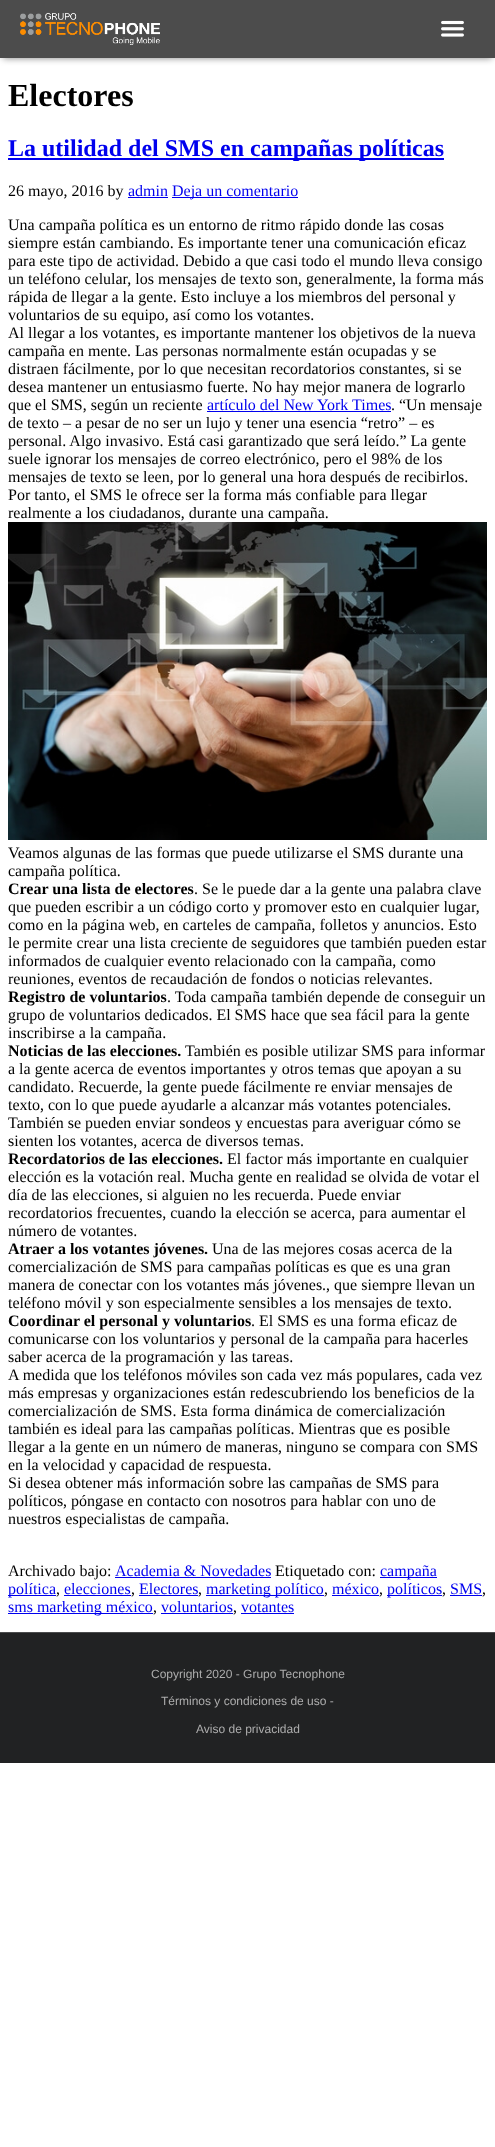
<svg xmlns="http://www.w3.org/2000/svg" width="495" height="2147">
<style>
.a{font:bold 32px Liberation Serif;fill:#000}
.b{font:bold 24px Liberation Serif;fill:#00e}
.c{font:16px Liberation Serif;fill:#000}
.d{font:16px Liberation Serif;fill:#00e}
.e{font:bold 16px Liberation Serif;fill:#000}
.f{font:12px Liberation Sans;fill:#adadad}
</style>
<rect width="100%" height="100%" fill="#fff"/>
<path fill="#00000080" filter="blur(3.5px)" d="M3 6h489v52H3z"/>
<path fill="#4c4c4c" d="M0 0h495v58H0z"/>
<image href="1.png" x="20" y="12" width="140" height="33"/>
<image href="2.png" x="441" y="20" width="23" height="17"/>
<path fill="#00e" d="M8 158h436v2H8z"/>
<path fill="#00e" d="M128 197h40v1H128z"/>
<path fill="#00e" d="M172 197h126v1H172z"/>
<path fill="#00e" d="M207 411h184v1H207z"/>
<image href="3.png" x="8" y="522" width="479" height="318"/>
<path fill="#00e" d="M115 1577h156v1H115z"/>
<path fill="#00e" d="M380 1577h57v1H380z"/>
<path fill="#00e" d="M8 1595h48v1H8z"/>
<path fill="#00e" d="M64 1595h67v1H64z"/>
<path fill="#00e" d="M139 1595h59v1H139z"/>
<path fill="#00e" d="M206 1595h118v1H206z"/>
<path fill="#00e" d="M332 1595h47v1H332z"/>
<path fill="#00e" d="M387 1595h55v1H387z"/>
<path fill="#00e" d="M450 1595h32v1H450z"/>
<path fill="#00e" d="M8 1613h145v1H8z"/>
<path fill="#00e" d="M161 1613h72v1H161z"/>
<path fill="#00e" d="M241 1613h53v1H241z"/>
<path fill="#212223" d="M0 1633h495v130H0z"/>
<path fill="#4b4c4d" d="M0 1632h495v1H0z"/>
<text class="a" x="8" y="106">Electores</text>
<text class="b" x="8" y="156">La utilidad del SMS en campañas políticas</text>
<text class="c" x="8" y="196">26 mayo, 2016 by</text>
<text class="d" x="128" y="196">admin</text>
<text class="d" x="172" y="196">Deja un comentario</text>
<text class="c" x="8" y="230">Una campaña política es un entorno de ritmo rápido donde las cosas</text>
<text class="c" x="8" y="248">siempre están cambiando. Es importante tener una comunicación eficaz</text>
<text class="c" x="8" y="266">para este tipo de actividad. Debido a que casi todo el mundo lleva consigo</text>
<text class="c" x="8" y="284">un teléfono celular, los mensajes de texto son, generalmente, la forma más</text>
<text class="c" x="8" y="302">rápida de llegar a la gente. Esto incluye a los miembros del personal y</text>
<text class="c" x="8" y="320">voluntarios de su equipo, así como los votantes.</text>
<text class="c" x="8" y="338">Al llegar a los votantes, es importante mantener los objetivos de la nueva</text>
<text class="c" x="8" y="356">campaña en mente. Las personas normalmente están ocupadas y se</text>
<text class="c" x="8" y="374">distraen fácilmente, por lo que necesitan recordatorios constantes, si se</text>
<text class="c" x="8" y="392">desea mantener un entusiasmo fuerte. No hay mejor manera de lograrlo</text>
<text class="c" x="8" y="410">que el SMS, según un reciente</text>
<text class="d" x="207" y="410">artículo del New York Times</text>
<text class="c" x="391" y="410">. “Un mensaje</text>
<text class="c" x="8" y="428">de texto – a pesar de no ser un lujo y tener una esencia “retro” – es</text>
<text class="c" x="8" y="446">personal. Algo invasivo. Está casi garantizado que será leído.” La gente</text>
<text class="c" x="8" y="464">suele ignorar los mensajes de correo electrónico, pero el 98% de los</text>
<text class="c" x="8" y="482">mensajes de texto se leen, por lo general una hora después de recibirlos.</text>
<text class="c" x="8" y="500">Por tanto, el SMS le ofrece ser la forma más confiable para llegar</text>
<text class="c" x="8" y="518">realmente a los ciudadanos, durante una campaña.</text>
<text class="c" x="8" y="858">Veamos algunas de las formas que puede utilizarse el SMS durante una</text>
<text class="c" x="8" y="876">campaña política.</text>
<text class="e" x="8" y="894">Crear una lista de electores</text>
<text class="c" x="194" y="894">. Se le puede dar a la gente una palabra clave</text>
<text class="c" x="8" y="912">que pueden escribir a un código corto y promover esto en cualquier lugar,</text>
<text class="c" x="8" y="930">como en la página web, en carteles de campaña, folletos y anuncios. Esto</text>
<text class="c" x="8" y="948">le permite crear una lista creciente de seguidores que también pueden estar</text>
<text class="c" x="8" y="966">informados de cualquier evento relacionado con la campaña, como</text>
<text class="c" x="8" y="984">reuniones, eventos de recaudación de fondos o noticias relevantes.</text>
<text class="e" x="8" y="1002">Registro de voluntarios</text>
<text class="c" x="167" y="1002">. Toda campaña también depende de conseguir un</text>
<text class="c" x="8" y="1020">grupo de voluntarios dedicados. El SMS hace que sea fácil para la gente</text>
<text class="c" x="8" y="1038">inscribirse a la campaña.</text>
<text class="e" x="8" y="1056">Noticias de las elecciones.</text>
<text class="c" x="185" y="1056">También es posible utilizar SMS para informar</text>
<text class="c" x="8" y="1074">a la gente acerca de eventos importantes y otros temas que apoyan a su</text>
<text class="c" x="8" y="1092">candidato. Recuerde, la gente puede fácilmente re enviar mensajes de</text>
<text class="c" x="8" y="1110">texto, con lo que puede ayudarle a alcanzar más votantes potenciales.</text>
<text class="c" x="8" y="1128">También se pueden enviar sondeos y encuestas para averiguar cómo se</text>
<text class="c" x="8" y="1146">sienten los votantes, acerca de diversos temas.</text>
<text class="e" x="8" y="1164">Recordatorios de las elecciones.</text>
<text class="c" x="227" y="1164">El factor más importante en cualquier</text>
<text class="c" x="8" y="1182">elección es la votación real. Mucha gente en realidad se olvida de votar el</text>
<text class="c" x="8" y="1200">día de las elecciones, si alguien no les recuerda. Puede enviar</text>
<text class="c" x="8" y="1218">recordatorios frecuentes, cuando la elección se acerca, para aumentar el</text>
<text class="c" x="8" y="1236">número de votantes.</text>
<text class="e" x="8" y="1254">Atraer a los votantes jóvenes.</text>
<text class="c" x="212" y="1254">Una de las mejores cosas acerca de la</text>
<text class="c" x="8" y="1272">comercialización de SMS para campañas políticas es que es una gran</text>
<text class="c" x="8" y="1290">manera de conectar con los votantes más jóvenes., que siempre llevan un</text>
<text class="c" x="8" y="1308">teléfono móvil y son especialmente sensibles a los mensajes de texto.</text>
<text class="e" x="8" y="1326">Coordinar el personal y voluntarios</text>
<text class="c" x="251" y="1326">. El SMS es una forma eficaz de</text>
<text class="c" x="8" y="1344">comunicarse con los voluntarios y personal de la campaña para hacerles</text>
<text class="c" x="8" y="1362">saber acerca de la programación y las tareas.</text>
<text class="c" x="8" y="1380">A medida que los teléfonos móviles son cada vez más populares, cada vez</text>
<text class="c" x="8" y="1398">más empresas y organizaciones están redescubriendo los beneficios de la</text>
<text class="c" x="8" y="1416">comercialización de SMS. Esta forma dinámica de comercialización</text>
<text class="c" x="8" y="1434">también es ideal para las campañas políticas. Mientras que es posible</text>
<text class="c" x="8" y="1452">llegar a la gente en un número de maneras, ninguno se compara con SMS</text>
<text class="c" x="8" y="1470">en la velocidad y capacidad de respuesta.</text>
<text class="c" x="8" y="1488">Si desea obtener más información sobre las campañas de SMS para</text>
<text class="c" x="8" y="1506">políticos, póngase en contacto con nosotros para hablar con uno de</text>
<text class="c" x="8" y="1524">nuestros especialistas de campaña.</text>
<text class="c" x="8" y="1576">Archivado bajo:</text>
<text class="d" x="115" y="1576">Academia &amp; Novedades</text>
<text class="c" x="275" y="1576">Etiquetado con:</text>
<text class="d" x="380" y="1576">campaña</text>
<text class="d" x="8" y="1594">política</text>
<text class="c" x="56" y="1594">,</text>
<text class="d" x="64" y="1594">elecciones</text>
<text class="c" x="131" y="1594">,</text>
<text class="d" x="139" y="1594">Electores</text>
<text class="c" x="198" y="1594">,</text>
<text class="d" x="206" y="1594">marketing político</text>
<text class="c" x="324" y="1594">,</text>
<text class="d" x="332" y="1594">méxico</text>
<text class="c" x="379" y="1594">,</text>
<text class="d" x="387" y="1594">políticos</text>
<text class="c" x="442" y="1594">,</text>
<text class="d" x="450" y="1594">SMS</text>
<text class="c" x="482" y="1594">,</text>
<text class="d" x="8" y="1612">sms marketing méxico</text>
<text class="c" x="153" y="1612">,</text>
<text class="d" x="161" y="1612">voluntarios</text>
<text class="c" x="233" y="1612">,</text>
<text class="d" x="241" y="1612">votantes</text>
<text class="f" x="151" y="1678">Copyright 2020 - Grupo Tecnophone</text>
<text class="f" x="161" y="1705">Términos y condiciones de uso -</text>
<text class="f" x="196" y="1733">Aviso de privacidad</text>
</svg>
